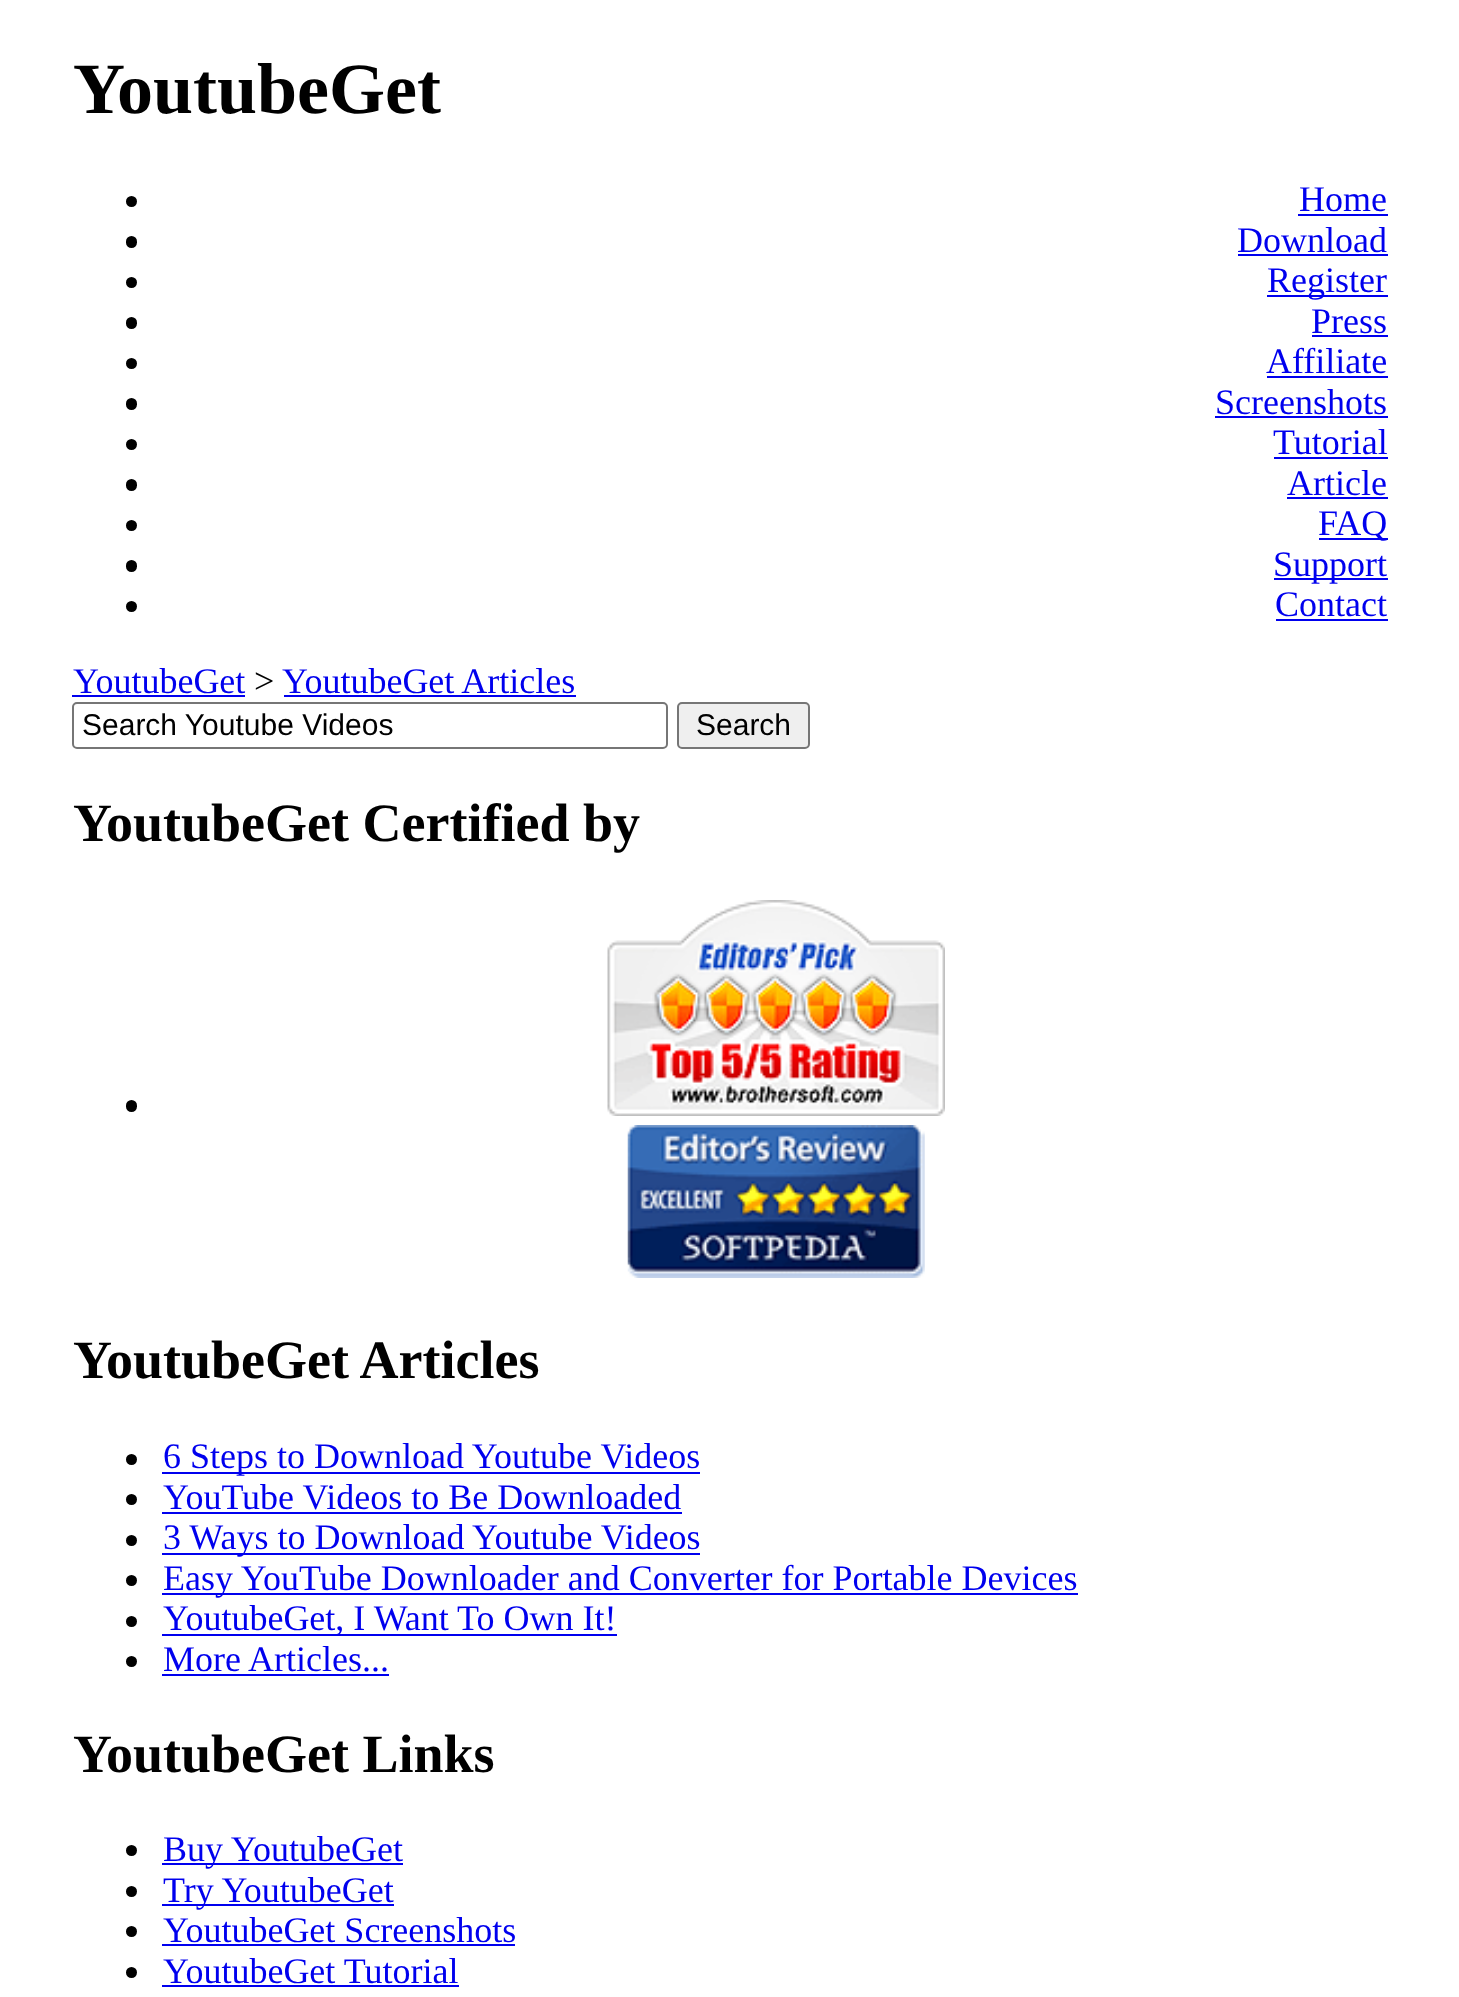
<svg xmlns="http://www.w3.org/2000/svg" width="1459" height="1997">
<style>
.a{font:bold 72px Liberation Serif;fill:#000}
.b{font:36px Liberation Serif;fill:#00e}
.c{font:36px Liberation Serif;fill:#000}
.d{font:30px Liberation Sans;fill:#000}
.e{font:bold 54px Liberation Serif;fill:#000}
</style>
<rect width="100%" height="100%" fill="#fff"/>
<circle fill="#000" cx="131.5" cy="201.5" r="5.5"/>
<path fill="#00e" d="M1298 214h90v2H1298z"/>
<rect fill="#000" x="126" y="236" width="11" height="12" rx="5.5"/>
<path fill="#00e" d="M1238 254h150v2H1238z"/>
<circle fill="#000" cx="131.5" cy="282.5" r="5.5"/>
<path fill="#00e" d="M1267 295h121v2H1267z"/>
<rect fill="#000" x="126" y="317" width="11" height="12" rx="5.5"/>
<path fill="#00e" d="M1312 335h76v2H1312z"/>
<circle fill="#000" cx="131.5" cy="363.5" r="5.5"/>
<path fill="#00e" d="M1267 376h121v2H1267z"/>
<rect fill="#000" x="126" y="398" width="11" height="12" rx="5.5"/>
<path fill="#00e" d="M1215 416h173v2H1215z"/>
<circle fill="#000" cx="131.5" cy="444.5" r="5.5"/>
<path fill="#00e" d="M1274 457h114v2H1274z"/>
<rect fill="#000" x="126" y="479" width="11" height="12" rx="5.5"/>
<path fill="#00e" d="M1287 497h101v2H1287z"/>
<circle fill="#000" cx="131.5" cy="525.5" r="5.5"/>
<path fill="#00e" d="M1319 538h69v2H1319z"/>
<rect fill="#000" x="126" y="560" width="11" height="12" rx="5.5"/>
<path fill="#00e" d="M1274 578h114v2H1274z"/>
<circle fill="#000" cx="131.5" cy="606.5" r="5.5"/>
<path fill="#00e" d="M1276 619h112v2H1276z"/>
<path fill="#00e" d="M72 695h173v2H72z"/>
<path fill="#00e" d="M284 695h292v2H284z"/>
<rect fill="none" stroke="#767676" stroke-width="2" x="73" y="703" width="594" height="45" rx="4"/>
<rect fill="#efefef" stroke="#767676" stroke-width="2" x="678" y="703" width="131" height="45" rx="4"/>
<rect fill="#000" x="126" y="1100" width="11" height="12" rx="5.5"/>
<image href="1.png" x="607" y="900" width="338" height="216"/>
<image href="2.png" x="627" y="1125" width="298" height="153"/>
<circle fill="#000" cx="131.5" cy="1459.5" r="5.5"/>
<path fill="#00e" d="M162 1472h538v2H162z"/>
<circle fill="#000" cx="131.5" cy="1499.5" r="5.5"/>
<path fill="#00e" d="M162 1512h520v2H162z"/>
<circle fill="#000" cx="131.5" cy="1540.5" r="5.5"/>
<path fill="#00e" d="M162 1553h538v2H162z"/>
<circle fill="#000" cx="131.5" cy="1580.5" r="5.5"/>
<path fill="#00e" d="M162 1593h916v2H162z"/>
<circle fill="#000" cx="131.5" cy="1621.5" r="5.5"/>
<path fill="#00e" d="M162 1634h455v2H162z"/>
<circle fill="#000" cx="131.5" cy="1661.5" r="5.5"/>
<path fill="#00e" d="M162 1674h227v2H162z"/>
<circle fill="#000" cx="131.5" cy="1850.5" r="5.5"/>
<path fill="#00e" d="M162 1863h241v2H162z"/>
<circle fill="#000" cx="131.5" cy="1891.5" r="5.5"/>
<path fill="#00e" d="M162 1904h232v2H162z"/>
<circle fill="#000" cx="131.5" cy="1931.5" r="5.5"/>
<path fill="#00e" d="M162 1944h353v2H162z"/>
<circle fill="#000" cx="131.5" cy="1972.5" r="5.5"/>
<path fill="#00e" d="M162 1985h297v2H162z"/>
<text class="a" x="73" y="113">YoutubeGet</text>
<text class="b" x="1299" y="211">Home</text>
<text class="b" x="1237" y="252">Download</text>
<text class="b" x="1267" y="292">Register</text>
<text class="b" x="1311" y="333">Press</text>
<text class="b" x="1266" y="373">Affiliate</text>
<text class="b" x="1215" y="414">Screenshots</text>
<text class="b" x="1273" y="454">Tutorial</text>
<text class="b" x="1287" y="495">Article</text>
<text class="b" x="1318" y="535">FAQ</text>
<text class="b" x="1273" y="576">Support</text>
<text class="b" x="1275" y="616">Contact</text>
<text class="b" x="73" y="693">YoutubeGet</text>
<text class="c" x="254" y="693">&gt;</text>
<text class="b" x="282" y="693">YoutubeGet Articles</text>
<text class="d" x="82" y="735">Search Youtube Videos</text>
<text class="d" x="696" y="735">Search</text>
<text class="e" x="73" y="841">YoutubeGet Certified by</text>
<text class="e" x="73" y="1378">YoutubeGet Articles</text>
<text class="b" x="163" y="1468">6 Steps to Download Youtube Videos</text>
<text class="b" x="163" y="1509">YouTube Videos to Be Downloaded</text>
<text class="b" x="163" y="1549">3 Ways to Download Youtube Videos</text>
<text class="b" x="163" y="1590">Easy YouTube Downloader and Converter for Portable Devices</text>
<text class="b" x="163" y="1630">YoutubeGet, I Want To Own It!</text>
<text class="b" x="163" y="1671">More Articles...</text>
<text class="e" x="73" y="1772">YoutubeGet Links</text>
<text class="b" x="163" y="1861">Buy YoutubeGet</text>
<text class="b" x="163" y="1902">Try YoutubeGet</text>
<text class="b" x="163" y="1942">YoutubeGet Screenshots</text>
<text class="b" x="163" y="1983">YoutubeGet Tutorial</text>
</svg>
